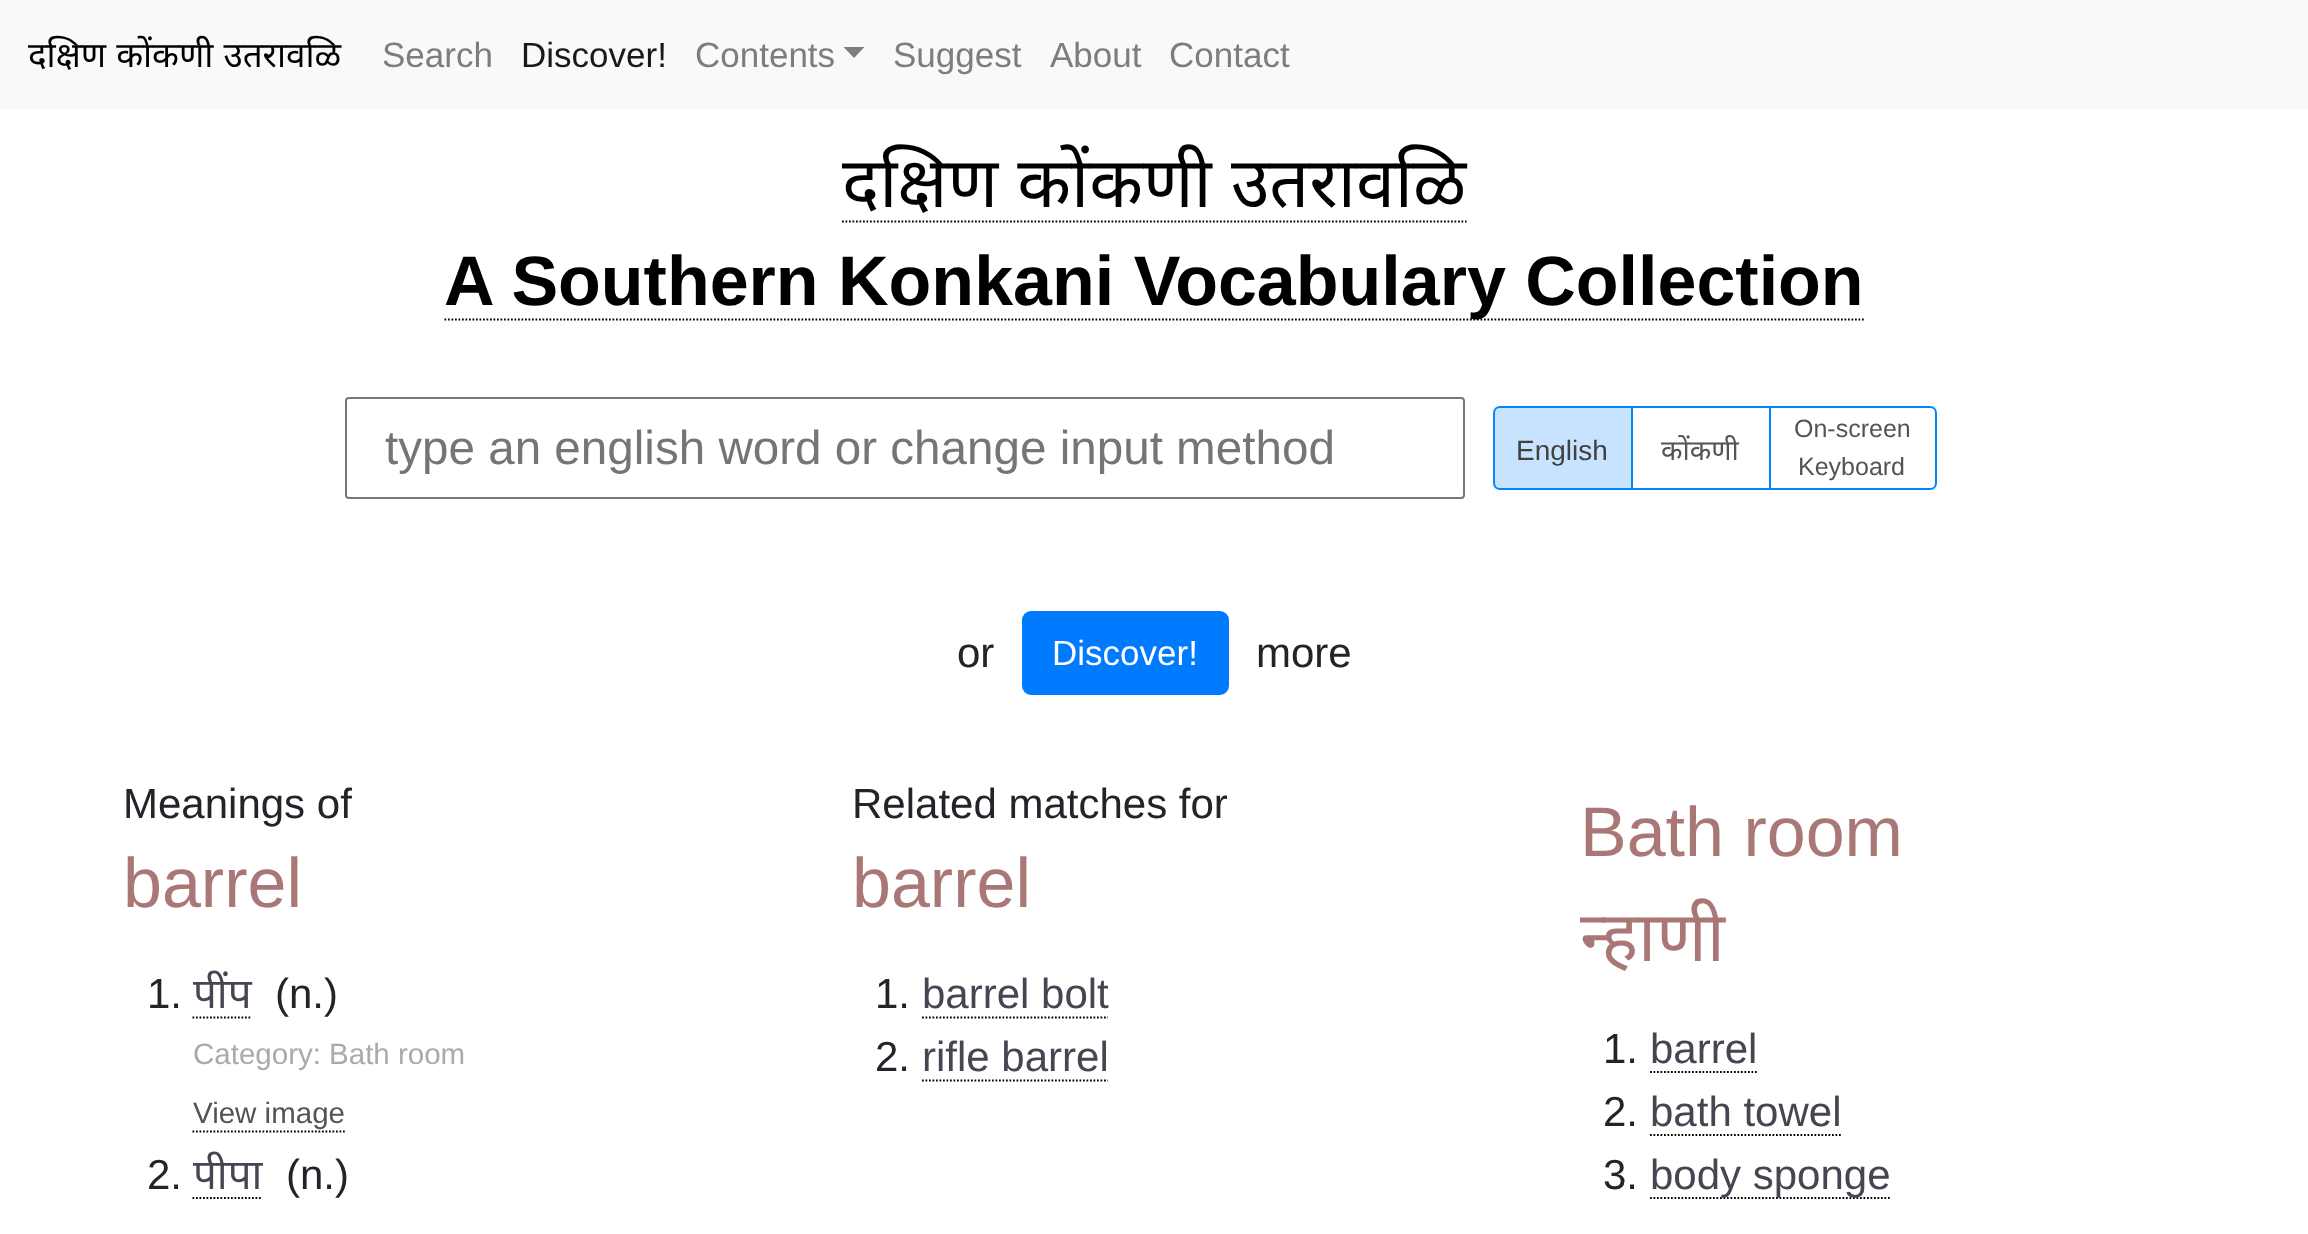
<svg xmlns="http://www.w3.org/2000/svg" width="2308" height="1234">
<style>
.a{font:35px Noto Sans;fill:#000}
.b{font:35px Liberation Sans;fill:#7c7d7d}
.c{font:35px Liberation Sans;fill:#191919}
.d{font:70px Noto Sans;fill:#000}
.e{font:bold 70px Liberation Sans;fill:#000}
.f{font:47.6px Liberation Sans;fill:#757575}
.g{font:28px Liberation Sans;fill:#414141}
.h{font:28px Noto Sans;fill:#545454}
.i{font:25px Liberation Sans;fill:#545454}
.j{font:42px Liberation Sans;fill:#212529}
.k{font:35px Liberation Sans;fill:#fff}
.l{font:70px Liberation Sans;fill:#a77}
.m{font:42px Noto Sans;fill:#484452}
.n{font:29.5px Liberation Sans;fill:#aaa}
.o{font:29.5px Liberation Sans;fill:#545454}
.p{font:42px Liberation Sans;fill:#484452}
.q{font:70px Noto Sans;fill:#a77}
</style>
<rect width="100%" height="100%" fill="#fff"/>
<path fill="#f8f9fa" d="M0 0h2308v109H0z"/>
<path fill="#7c7d7d" d="M843.5 47h21l-10.5 11z"/>
<path fill="none" stroke="#000" stroke-width="1.8" stroke-dasharray="1.75 1.75" d="M842 221.5h624.5"/>
<path fill="none" stroke="#000" stroke-width="1.8" stroke-dasharray="1.75 1.75" d="M444.5 319.5h1419.5"/>
<rect fill="none" stroke="#767676" stroke-width="2" x="346" y="398" width="1118" height="100" rx="3"/>
<path fill="none" stroke="#0087ff" stroke-width="2" d="M1632 407h138v82H1632z"/>
<path fill="#c7e3ff" stroke="#0087ff" stroke-width="2" d="M1500 407h132v82h-132c-3.5 0-6-2.5-6-6v-70c0-3.5 2.5-6 6-6z"/>
<path fill="#fff" stroke="#0087ff" stroke-width="2" d="M1770 407h160c3.5 0 6 2.5 6 6v70c0 3.5-2.5 6-6 6h-160z"/>
<rect fill="#007bff" stroke="#007bff" stroke-width="2" x="1023" y="612" width="205" height="82" rx="8"/>
<path fill="none" stroke="#000" stroke-width="1.8" stroke-dasharray="1.75 1.75" d="M192.5 1017.5h59.5"/>
<path fill="none" stroke="#000" stroke-width="1.8" stroke-dasharray="1.75 1.75" d="M192.5 1131.5h152.5"/>
<path fill="none" stroke="#000" stroke-width="1.8" stroke-dasharray="1.75 1.75" d="M192.5 1198h70"/>
<path fill="none" stroke="#000" stroke-width="1.8" stroke-dasharray="1.75 1.75" d="M922 1017.5h186"/>
<path fill="none" stroke="#000" stroke-width="1.8" stroke-dasharray="1.75 1.75" d="M922 1080.5h186"/>
<path fill="none" stroke="#000" stroke-width="1.8" stroke-dasharray="1.75 1.75" d="M1650 1072h107"/>
<path fill="none" stroke="#000" stroke-width="1.8" stroke-dasharray="1.75 1.75" d="M1650 1135h191"/>
<path fill="none" stroke="#000" stroke-width="1.8" stroke-dasharray="1.75 1.75" d="M1650 1198h240"/>
<text class="a" x="28" y="67" word-spacing="1">दक्षिण कोंकणी उतरावळि</text>
<text class="b" x="382" y="67">Search</text>
<text class="c" x="521" y="67">Discover!</text>
<text class="b" x="695" y="67">Contents</text>
<text class="b" x="893" y="67">Suggest</text>
<text class="b" x="1050" y="67">About</text>
<text class="b" x="1169" y="67">Contact</text>
<text class="d" x="842" y="207" word-spacing="1">दक्षिण कोंकणी उतरावळि</text>
<text class="e" x="444" y="305">A Southern Konkani Vocabulary Collection</text>
<text class="f" x="385" y="464">type an english word or change input method</text>
<text class="g" x="1516" y="460">English</text>
<text class="h" x="1661" y="460">कोंकणी</text>
<text class="i" x="1794" y="437">On-screen</text>
<text class="i" x="1798" y="475">Keyboard</text>
<text class="j" x="957" y="667">or</text>
<text class="k" x="1052" y="665">Discover!</text>
<text class="j" x="1256" y="667">more</text>
<text class="j" x="123" y="818">Meanings of</text>
<text class="l" x="123" y="907">barrel</text>
<text class="j" x="147" y="1008">1.</text>
<text class="m" x="193" y="1008">पींप</text>
<text class="j" x="275" y="1008">(n.)</text>
<text class="n" x="193" y="1064">Category: Bath room</text>
<text class="o" x="193" y="1123">View image</text>
<text class="j" x="147" y="1189">2.</text>
<text class="m" x="193" y="1189">पीपा</text>
<text class="j" x="286" y="1189">(n.)</text>
<text class="j" x="852" y="818">Related matches for</text>
<text class="l" x="852" y="907">barrel</text>
<text class="j" x="875" y="1008">1.</text>
<text class="p" x="922" y="1008">barrel bolt</text>
<text class="j" x="875" y="1071">2.</text>
<text class="p" x="922" y="1071">rifle barrel</text>
<text class="l" x="1580" y="856">Bath room</text>
<text class="q" x="1580" y="961">न्हाणी</text>
<text class="j" x="1603" y="1063">1.</text>
<text class="p" x="1650" y="1063">barrel</text>
<text class="j" x="1603" y="1126">2.</text>
<text class="p" x="1650" y="1126">bath towel</text>
<text class="j" x="1603" y="1189">3.</text>
<text class="p" x="1650" y="1189">body sponge</text>
</svg>
